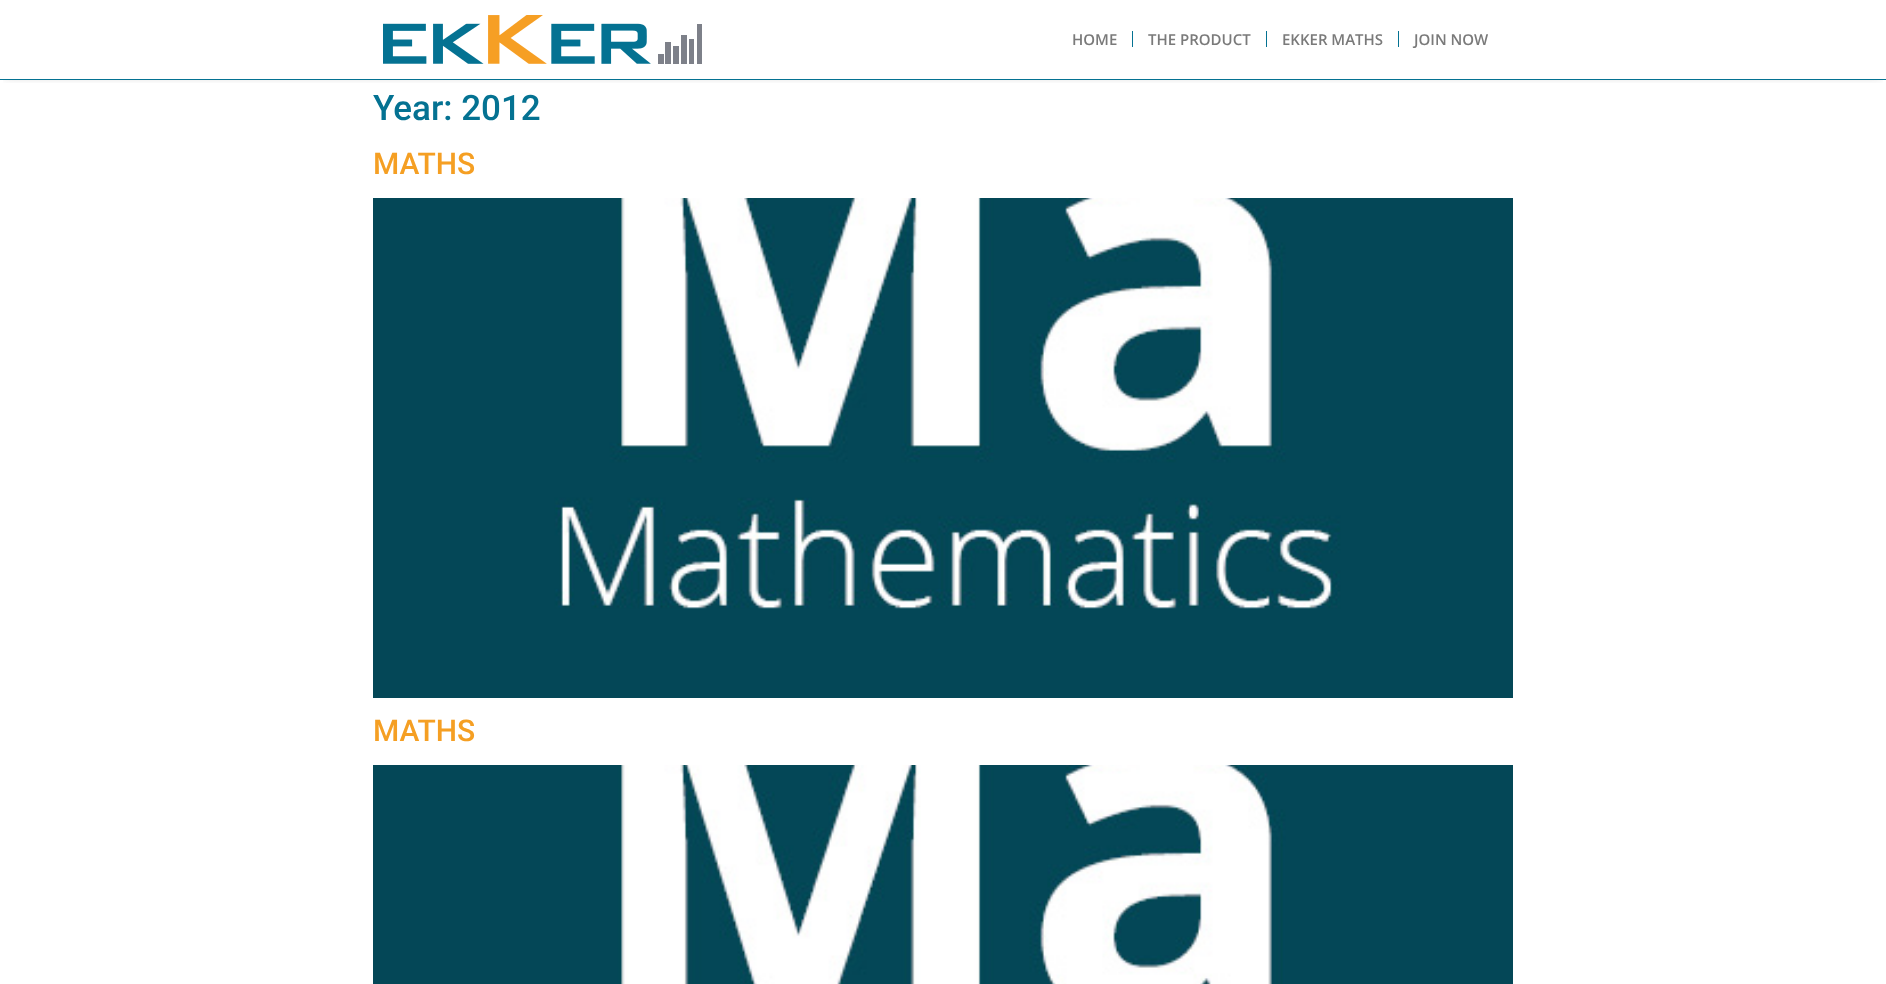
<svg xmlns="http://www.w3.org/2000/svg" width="1886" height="984">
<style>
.a{font:600 15px Open Sans;fill:#7a7a7a}
.b{font:500 35px Roboto;fill:#047292}
.c{font:500 30px Roboto;fill:#f59f23}
</style>
<defs>
<clipPath id="clip1"><path d="M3 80h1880v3H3z"/></clipPath>
</defs>
<rect width="100%" height="100%" fill="#fff"/>
<g clip-path="url(#clip1)">
<path fill="#00000042" filter="blur(5px)" d="M4 4h1878v72H4z"/>
</g>
<path fill="#047292" d="M0 79h1886v1H0z"/>
<image href="1.png" x="383" y="15" width="319" height="49"/>
<path fill="#047292" d="M1132 31h1v16H1132z"/>
<path fill="#047292" d="M1266 31h1v16H1266z"/>
<path fill="#047292" d="M1398 31h1v16H1398z"/>
<image href="2.png" x="373" y="198" width="1140" height="500"/>
<image href="3.png" x="373" y="765" width="1140" height="219"/>
<text class="a" x="1072" y="45">HOME</text>
<text class="a" x="1148" y="45">THE PRODUCT</text>
<text class="a" x="1282" y="45">EKKER MATHS</text>
<text class="a" x="1414" y="45">JOIN NOW</text>
<text class="b" x="373" y="120">Year: 2012</text>
<text class="c" x="373" y="174">MATHS</text>
<text class="c" x="373" y="741">MATHS</text>
</svg>
